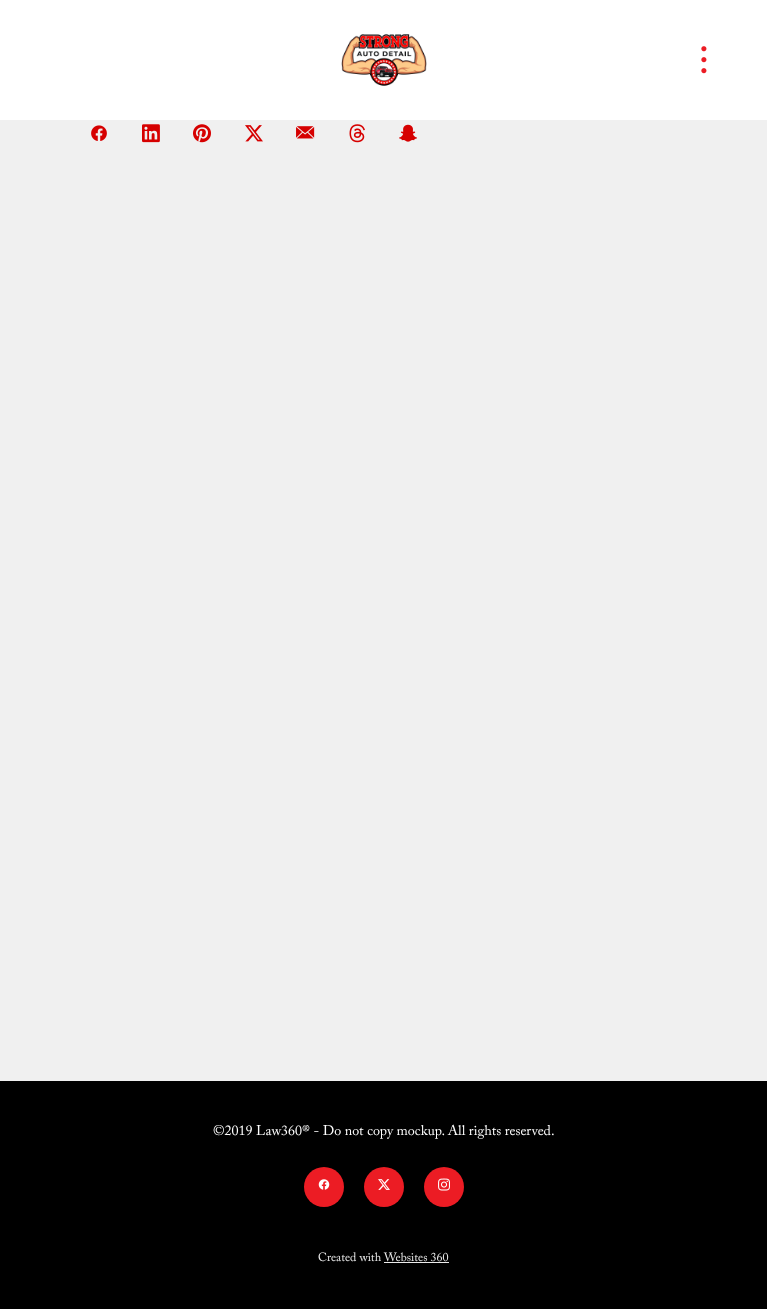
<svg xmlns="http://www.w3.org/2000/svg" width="767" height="1309">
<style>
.a{font:14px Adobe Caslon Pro;fill:#fff}
.b{font:12px Adobe Caslon Pro;fill:#ebebeb}
</style>
<rect width="100%" height="100%" fill="#f0f0f0"/>
<path fill="#fff" d="M0 0h767v120H0z"/>
<image href="1.png" x="341" y="34" width="86" height="52"/>
<image href="2.png" x="701" y="46" width="6" height="28"/>
<image href="3.png" x="91" y="125" width="16" height="16"/>
<image href="4.png" x="142" y="124" width="18" height="19"/>
<image href="5.png" x="193" y="124" width="18" height="19"/>
<image href="6.png" x="245" y="125" width="18" height="17"/>
<image href="7.png" x="296" y="126" width="19" height="13"/>
<image href="8.png" x="349" y="124" width="16" height="19"/>
<image href="9.png" x="399" y="124" width="18" height="18"/>
<path fill="#000" d="M0 1081h767v228H0z"/>
<circle fill="#ec1c24" cx="324" cy="1187" r="20"/>
<image href="10.png" x="318" y="1179" width="12" height="11"/>
<circle fill="#ec1c24" cx="384" cy="1187" r="20"/>
<image href="11.png" x="378" y="1179" width="12" height="11"/>
<circle fill="#ec1c24" cx="444" cy="1187" r="20"/>
<image href="12.png" x="438" y="1178" width="12" height="13"/>
<path fill="#ebebeb" d="M384 1262h65v1H384z"/>
<text class="a" x="213" y="1135">©2019 Law360® - Do not copy mockup. All rights reserved.</text>
<text class="b" x="318" y="1261">Created with Websites 360</text>
</svg>
